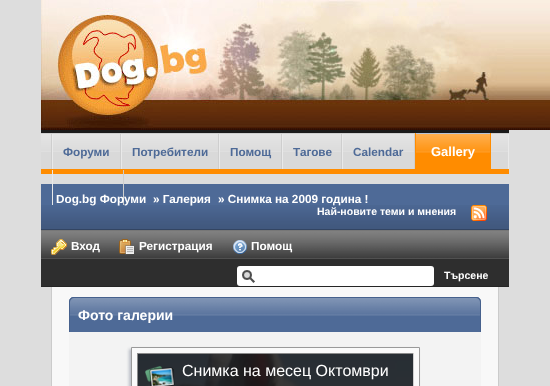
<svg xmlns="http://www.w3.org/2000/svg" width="550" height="386">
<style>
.a{font:bold 11.75px Liberation Sans;fill:#4e6a97}
.b{font:bold 13px Liberation Sans;fill:#fff}
.c{font:bold 11.75px Liberation Sans;fill:#fff}
.d{font:bold 10.5px Liberation Sans;fill:#fff}
.e{font:bold 14px Liberation Sans;fill:#fff}
.f{font:16px Liberation Sans;fill:#fff}
</style>
<rect width="100%" height="100%" fill="#ddd"/>
<path fill="#1a1a1a" d="M41 130h468v3H41z"/>
<image href="1.png" x="41" y="0" width="509" height="130"/>
<path fill="#d9d9d9" d="M41 134h467v35H41z"/>
<image href="2.png" x="41" y="134" width="467" height="18"/>
<path fill="#cecece" d="M41 133h468v1H41z"/>
<path fill="#ff8c00" d="M41 169h468v5H41z"/>
<path fill="#e9e9e9" d="M508 134h1v35H508z"/>
<path fill="#cecece" d="M51 134h1v35H51z"/>
<path fill="#cecece" d="M120 134h1v35H120z"/>
<path fill="#e9e9e9" d="M52 134h1v35H52z"/>
<path fill="#cecece" d="M218 134h1v35H218z"/>
<path fill="#e9e9e9" d="M121 134h1v35H121z"/>
<path fill="#cecece" d="M281 134h1v35H281z"/>
<path fill="#e9e9e9" d="M219 134h1v35H219z"/>
<path fill="#cecece" d="M341 134h1v35H341z"/>
<path fill="#e9e9e9" d="M282 134h1v35H282z"/>
<path fill="#cecece" d="M414 134h1v35H414z"/>
<path fill="#e9e9e9" d="M342 134h1v35H342z"/>
<path fill="#ff8c00" d="M416 134h74v35H416z"/>
<image href="3.png" x="416" y="134" width="74" height="19"/>
<path fill="#b6c3d7" d="M415 133h76v1H415z"/>
<path fill="#ff8c00" d="M490 133h1v37H490z"/>
<path fill="#ff8c00" d="M415 133h1v37H415z"/>
<path fill="#4e6a97" d="M41 184h468v45H41z"/>
<path fill="#cecece" d="M123 170h1v35H123z"/>
<path fill="#e9e9e9" d="M52 170h1v35H52z"/>
<image href="4.png" x="41" y="205" width="468" height="24"/>
<path fill="#334562" d="M41 229h468v1H41z"/>
<image href="5.png" x="471" y="205" width="16" height="16"/>
<path fill="#2e2e2e" d="M41 231h468v55H41z"/>
<image href="6.png" x="41" y="231" width="468" height="28"/>
<path fill="#777" d="M41 230h468v1H41z"/>
<path fill="#252525" d="M41 286h468v1H41z"/>
<image href="7.png" x="51" y="239" width="16" height="16"/>
<image href="8.png" x="119" y="239" width="15" height="16"/>
<image href="9.png" x="233" y="240" width="14" height="14"/>
<rect fill="#fff" x="237" y="266" width="197" height="20" rx="3"/>
<image href="10.png" x="242" y="270" width="13" height="13"/>
<path fill="#f8f8f8" d="M52 287h446v99H52z"/>
<path fill="#cbcbcb" fill-rule="evenodd" d="M51 287h448v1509c0 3-2 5-5 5h-438c-3 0-5-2-5-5zm1 0h446v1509c0 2-2 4-4 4h-438c-2 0-4-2-4-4z"/>
<path fill="#4e6a97" d="M74 297h402c3 0 5 2 5 5v30h-412v-30c0-3 2-5 5-5z"/>
<image href="11.png" x="69" y="297" width="412" height="19"/>
<path fill="#46618d" fill-rule="evenodd" d="M74 297h402c3 0 5 2 5 5v30h-412v-30c0-3 2-5 5-5zm0 1h402c2 0 4 2 4 4v30h-410v-30c0-2 2-4 4-4z"/>
<path fill="#f3f3f3" d="M69 332h412v54H69z"/>
<path fill="#b8bcc5" filter="blur(1.5px)" d="M129 349h289v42H129z"/>
<path fill="#fafafa" stroke="#9a9a9a" d="M131.5 347.5h288v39H131.5z"/>
<image href="12.png" x="138" y="354" width="275" height="32"/>
<path fill="#8b8b8b" d="M137 353h277v1H137z"/>
<path fill="#d0d0d0" d="M413 353h1v33H413z"/>
<path fill="#8b8b8b" d="M137 353h1v33H137z"/>
<image href="13.png" x="145" y="366" width="30" height="20"/>
<text class="a" x="63" y="156">Форуми</text>
<text class="a" x="132" y="156">Потребители</text>
<text class="a" x="230" y="156">Помощ</text>
<text class="a" x="293" y="156">Тагове</text>
<text class="a" x="353" y="156">Calendar</text>
<text class="b" x="431" y="156">Gallery</text>
<text class="c" x="56" y="203">Dog.bg Форуми</text>
<text class="c" x="153" y="203">» Галерия</text>
<text class="c" x="218" y="203">» Снимка на 2009 година !</text>
<text class="d" x="317" y="215">Най-новите теми и мнения</text>
<text class="c" x="71" y="250">Вход</text>
<text class="c" x="139" y="250">Регистрация</text>
<text class="c" x="251" y="250">Помощ</text>
<text class="d" x="444" y="279">Търсене</text>
<text class="e" x="78" y="320">Фото галерии</text>
<text class="f" x="182" y="376">Снимка на месец Октомври</text>
</svg>
